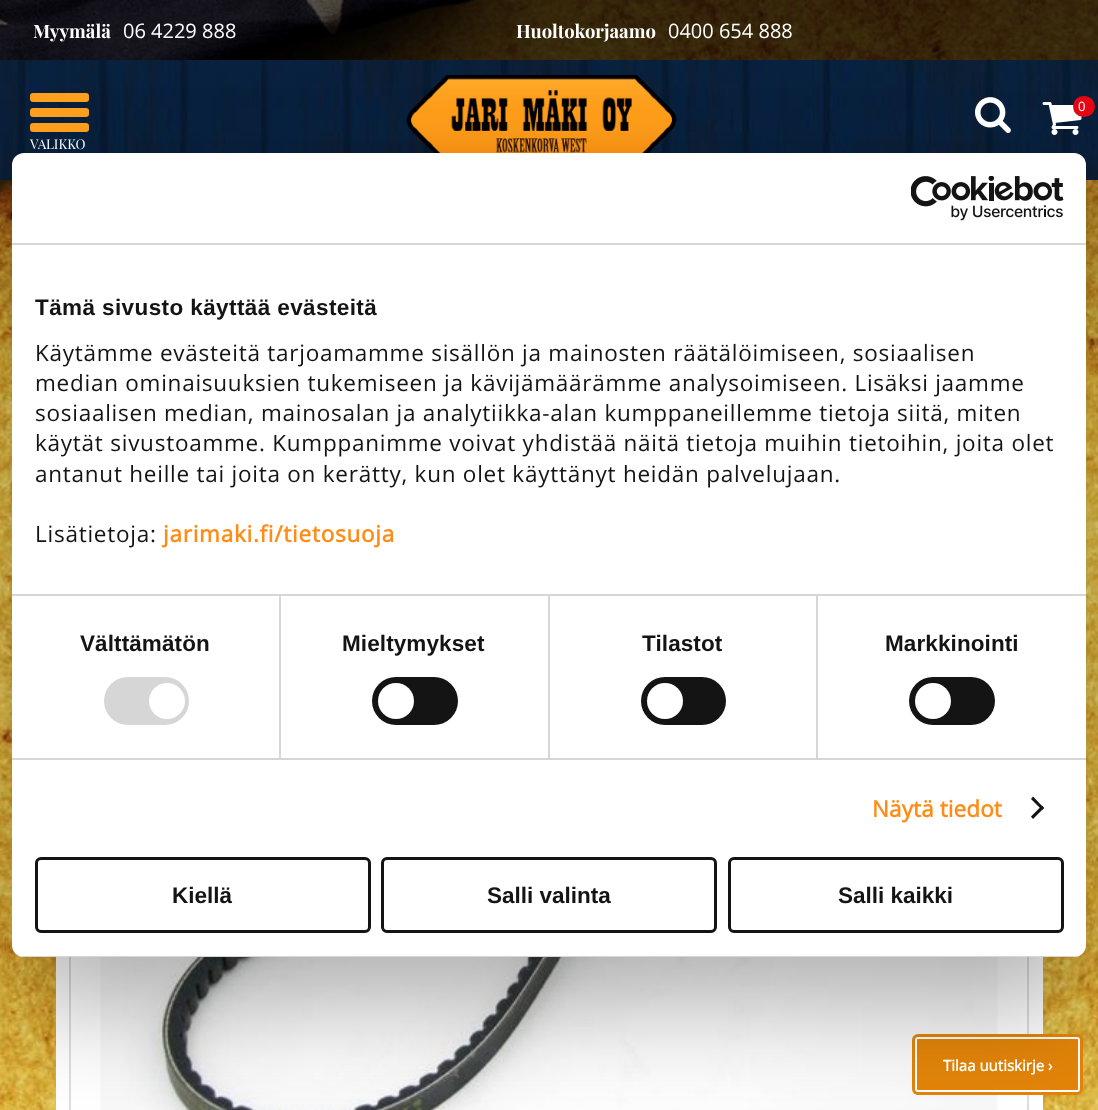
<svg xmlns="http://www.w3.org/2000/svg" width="1098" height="1110">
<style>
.a{font:bold 18.5px Playfair Display;fill:#fff}
.b{font:20px Open Sans;fill:#fff}
.c{font:13px Open Sans;fill:#fff}
.d{font:13.5px Playfair Display;fill:#fff}
.e{font:bold 22.5px Liberation Sans;letter-spacing:0.4px;fill:#141414}
.f{font:22.5px Open Sans;letter-spacing:0.75px;fill:#141414}
.g{font:bold 22.5px Open Sans;letter-spacing:0.75px;fill:#fe8c16}
.h{font:bold 22.5px Liberation Sans;letter-spacing:0.1px;fill:#141414}
.i{font:bold 22.5px Open Sans;letter-spacing:0.1px;fill:#fe8c16}
.j{font:bold 22.5px Liberation Sans;fill:#141414}
.k{font:bold 15px Open Sans;fill:#fff}
</style>
<defs>
<clipPath id="clip1"><rect x="12" y="153" width="1074" height="804" rx="12"/></clipPath>
</defs>
<rect width="100%" height="100%" fill="#fff"/>
<image href="1.png" x="0" y="0" width="1098" height="1110"/>
<path fill="#00000099" d="M0 0h1098v60H0z"/>
<image href="4.png" x="0" y="60" width="1098" height="120"/>
<rect fill="#ffa01e" x="30" y="93" width="59" height="9" rx="3"/>
<rect fill="#ffa01e" x="30" y="108" width="59" height="9" rx="3"/>
<rect fill="#ffa01e" x="30" y="123" width="59" height="9" rx="3"/>
<image href="5.png" x="406" y="75" width="271" height="78"/>
<path fill="#fff" d="M56 957h987v153H56z"/>
<path fill="none" stroke="#dedede" stroke-width="2" d="M70 301h958v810H70z"/>
<image href="7.png" x="100" y="957" width="898" height="153"/>
<rect fill="#e48509" x="912" y="1034" width="171" height="61" rx="6"/>
<rect fill="none" stroke="#fff" stroke-width="2" x="916" y="1038" width="163" height="53" rx="2"/>
<rect fill="#0000004d" filter="blur(51px)" x="12" y="201" width="1074" height="804" rx="12"/>
<image href="2.png" x="975" y="97" width="36" height="36"/>
<image href="3.png" x="1042" y="102" width="40" height="33"/>
<rect fill="#e30613" x="1073" y="96" width="22" height="21" rx="10.5"/>
<rect fill="#fff" x="12" y="153" width="1074" height="804" rx="12"/>
<path fill="#d6d6d6" d="M12 243h1074v2H12z"/>
<image href="6.png" x="911" y="176" width="153" height="45"/>
<path fill="#d6d6d6" d="M12 594h1074v2H12z"/>
<path fill="#d6d6d6" d="M12 758h1074v2H12z"/>
<path fill="#d6d6d6" d="M279 596h2v162H279z"/>
<rect fill="#d6d6d6" x="104" y="677" width="85" height="48" rx="24"/>
<circle fill="#fff" cx="167" cy="701" r="18"/>
<path fill="#d6d6d6" d="M548 596h2v162H548z"/>
<rect fill="#141414" x="372" y="677" width="86" height="48" rx="24"/>
<circle fill="#fff" cx="396" cy="701" r="18"/>
<path fill="#d6d6d6" d="M816 596h2v162H816z"/>
<rect fill="#141414" x="641" y="677" width="85" height="48" rx="24"/>
<circle fill="#fff" cx="665" cy="701" r="18"/>
<rect fill="#141414" x="909" y="677" width="86" height="48" rx="24"/>
<circle fill="#fff" cx="933" cy="701" r="18"/>
<path fill="#141414" d="M1033 796.5l11 11.5l-2 2l-11-11z"/>
<path fill="#141414" d="M1042 805.5l2 2.5l-11 11l-2-2.5z"/>
<g clip-path="url(#clip1)">
<path fill="#d6d6d6" d="M12 956h1074v1H12z"/>
</g>
<rect fill="none" stroke="#141414" stroke-width="3" x="36.5" y="858.5" width="333" height="73" rx="4.5"/>
<rect fill="none" stroke="#141414" stroke-width="3" x="382.5" y="858.5" width="333" height="73" rx="4.5"/>
<rect fill="none" stroke="#141414" stroke-width="3" x="729.5" y="858.5" width="333" height="73" rx="4.5"/>
<text class="a" x="33" y="38">Myymälä</text>
<text class="b" x="123" y="38">06 4229 888</text>
<text class="a" x="516" y="38">Huoltokorjaamo</text>
<text class="b" x="668" y="38">0400 654 888</text>
<text class="c" x="1078" y="111">0</text>
<text class="d" x="30" y="149">VALIKKO</text>
<text class="e" x="35" y="315">Tämä sivusto käyttää evästeitä</text>
<text class="f" x="35" y="361">Käytämme evästeitä tarjoamamme sisällön ja mainosten räätälöimiseen, sosiaalisen</text>
<text class="f" x="35" y="391">median ominaisuuksien tukemiseen ja kävijämäärämme analysoimiseen. Lisäksi jaamme</text>
<text class="f" x="35" y="421">sosiaalisen median, mainosalan ja analytiikka-alan kumppaneillemme tietoja siitä, miten</text>
<text class="f" x="35" y="451">käytät sivustoamme. Kumppanimme voivat yhdistää näitä tietoja muihin tietoihin, joita olet</text>
<text class="f" x="35" y="482">antanut heille tai joita on kerätty, kun olet käyttänyt heidän palvelujaan.</text>
<text class="f" x="35" y="542">Lisätietoja:</text>
<text class="g" x="163" y="542">jarimaki.fi/tietosuoja</text>
<text class="h" x="80" y="651">Välttämätön</text>
<text class="h" x="342" y="651">Mieltymykset</text>
<text class="h" x="642" y="651">Tilastot</text>
<text class="h" x="885" y="651">Markkinointi</text>
<text class="i" x="872" y="817">Näytä tiedot</text>
<text class="j" x="172" y="903">Kiellä</text>
<text class="j" x="487" y="903">Salli valinta</text>
<text class="j" x="838" y="903">Salli kaikki</text>
<text class="k" x="943" y="1071">Tilaa uutiskirje ›</text>
</svg>
